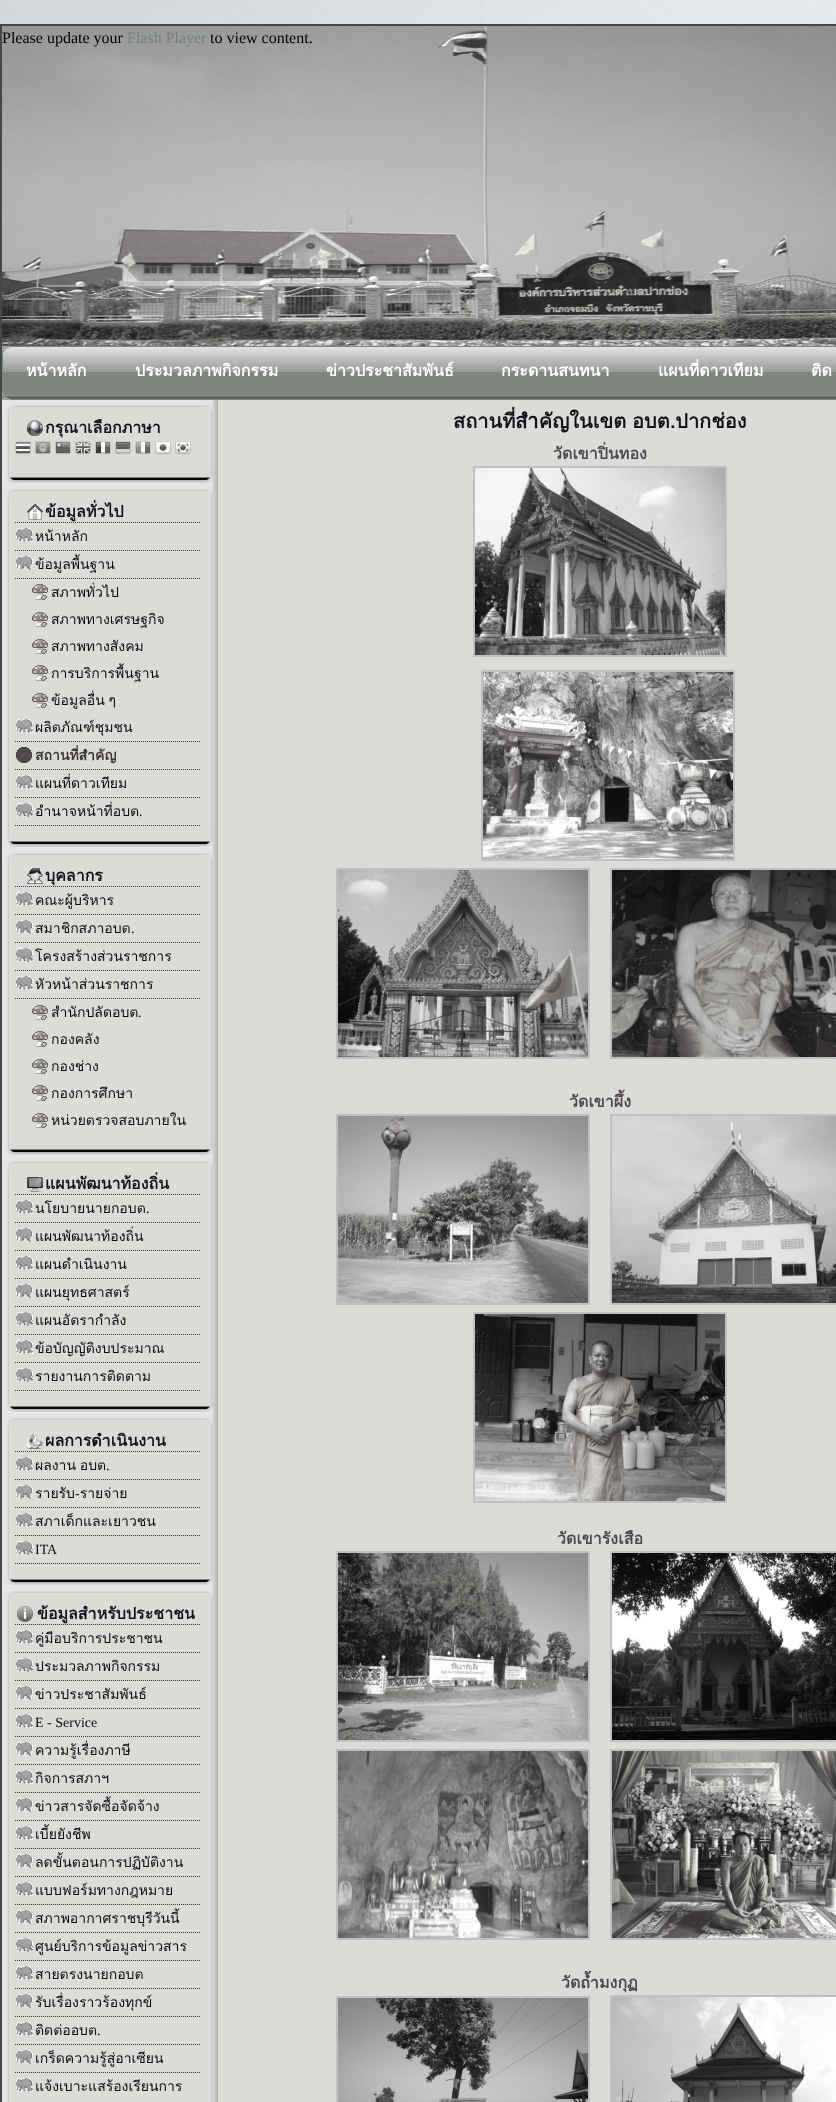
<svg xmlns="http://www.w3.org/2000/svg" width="836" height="2102">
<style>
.a{font:16px Liberation Serif;fill:#000}
.b{font:16px Liberation Serif;fill:#787e80}
.c{font:bold 16px Loma;fill:#fff}
.d{font:bold 16px Loma;fill:#12121c}
.e{font:14px Loma;fill:#0a0a0f}
.f{font:bold 14px Loma;fill:#3e3434}
.g{font:14px Liberation Serif;fill:#0a0a0f}
.h{font:bold 20px Loma;fill:#12121c}
.i{font:bold 16px Loma;fill:#504650}
</style>
<rect width="100%" height="100%" fill="#fff"/>
<image href="1.png" x="0" y="0" width="836" height="400"/>
<path fill="none" stroke="#444844" stroke-width="2" d="M1 25h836v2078H1z"/>
<image href="2.png" x="2" y="26" width="834" height="320"/>
<image href="3.png" x="2" y="346" width="834" height="54"/>
<path fill="#daddd7" d="M218 400h618v1702H218z"/>
<path fill="#e5e5e5" d="M2 400h210v1702H2z"/>
<image href="4.png" x="212" y="400" width="6" height="1702"/>
<image href="5.png" x="20" y="405" width="193" height="13"/>
<image href="6.png" x="7" y="405" width="13" height="13"/>
<image href="7.png" x="20" y="418" width="193" height="45"/>
<image href="8.png" x="7" y="418" width="13" height="45"/>
<image href="9.png" x="27" y="420" width="16" height="16"/>
<image href="10.png" x="15" y="441" width="16" height="14"/>
<image href="11.png" x="35" y="441" width="16" height="14"/>
<image href="12.png" x="55" y="441" width="16" height="14"/>
<image href="13.png" x="75" y="441" width="16" height="14"/>
<image href="14.png" x="95" y="441" width="16" height="14"/>
<image href="15.png" x="115" y="441" width="16" height="14"/>
<image href="16.png" x="135" y="441" width="16" height="14"/>
<image href="17.png" x="155" y="441" width="16" height="14"/>
<image href="18.png" x="175" y="441" width="16" height="14"/>
<image href="19.png" x="20" y="463" width="193" height="20"/>
<image href="20.png" x="7" y="463" width="13" height="20"/>
<image href="5.png" x="20" y="489" width="193" height="13"/>
<image href="6.png" x="7" y="489" width="13" height="13"/>
<image href="21.png" x="20" y="502" width="193" height="325"/>
<image href="22.png" x="7" y="502" width="13" height="325"/>
<image href="23.png" x="27" y="504" width="16" height="16"/>
<path fill="none" stroke="#3a353a" stroke-dasharray="1 1" d="M15 522.5h185"/>
<image href="24.png" x="16" y="528" width="17" height="14"/>
<path fill="none" stroke="#3a353a" stroke-dasharray="1 1" d="M15 550.5h185"/>
<image href="25.png" x="16" y="556" width="17" height="14"/>
<path fill="none" stroke="#3a353a" stroke-dasharray="1 1" d="M15 578.5h185"/>
<image href="26.png" x="32" y="584" width="16" height="16"/>
<image href="27.png" x="32" y="612" width="16" height="15"/>
<image href="27.png" x="32" y="639" width="16" height="15"/>
<image href="26.png" x="32" y="665" width="16" height="16"/>
<image href="27.png" x="32" y="693" width="16" height="15"/>
<image href="24.png" x="16" y="719" width="17" height="14"/>
<path fill="none" stroke="#3a353a" stroke-dasharray="1 1" d="M15 741.5h185"/>
<image href="28.png" x="16" y="747" width="16" height="16"/>
<path fill="none" stroke="#3a353a" stroke-dasharray="1 1" d="M15 769.5h185"/>
<image href="24.png" x="16" y="775" width="17" height="14"/>
<path fill="none" stroke="#3a353a" stroke-dasharray="1 1" d="M15 797.5h185"/>
<image href="29.png" x="16" y="803" width="17" height="14"/>
<path fill="none" stroke="#3a353a" stroke-dasharray="1 1" d="M15 825.5h185"/>
<image href="19.png" x="20" y="827" width="193" height="20"/>
<image href="20.png" x="7" y="827" width="13" height="20"/>
<image href="5.png" x="20" y="853" width="193" height="13"/>
<image href="6.png" x="7" y="853" width="13" height="13"/>
<image href="30.png" x="20" y="866" width="193" height="269"/>
<image href="31.png" x="7" y="866" width="13" height="269"/>
<image href="32.png" x="27" y="868" width="16" height="16"/>
<path fill="none" stroke="#3a353a" stroke-dasharray="1 1" d="M15 886.5h185"/>
<image href="24.png" x="16" y="892" width="17" height="14"/>
<path fill="none" stroke="#3a353a" stroke-dasharray="1 1" d="M15 914.5h185"/>
<image href="25.png" x="16" y="920" width="17" height="14"/>
<path fill="none" stroke="#3a353a" stroke-dasharray="1 1" d="M15 942.5h185"/>
<image href="29.png" x="16" y="948" width="17" height="14"/>
<path fill="none" stroke="#3a353a" stroke-dasharray="1 1" d="M15 970.5h185"/>
<image href="24.png" x="16" y="976" width="17" height="14"/>
<path fill="none" stroke="#3a353a" stroke-dasharray="1 1" d="M15 998.5h185"/>
<image href="27.png" x="32" y="1005" width="16" height="15"/>
<image href="26.png" x="32" y="1031" width="16" height="16"/>
<image href="27.png" x="32" y="1059" width="16" height="15"/>
<image href="26.png" x="32" y="1085" width="16" height="16"/>
<image href="27.png" x="32" y="1113" width="16" height="15"/>
<image href="19.png" x="20" y="1135" width="193" height="20"/>
<image href="20.png" x="7" y="1135" width="13" height="20"/>
<image href="5.png" x="20" y="1161" width="193" height="13"/>
<image href="6.png" x="7" y="1161" width="13" height="13"/>
<image href="33.png" x="20" y="1174" width="193" height="218"/>
<image href="34.png" x="7" y="1174" width="13" height="218"/>
<image href="35.png" x="27" y="1177" width="16" height="15"/>
<path fill="none" stroke="#3a353a" stroke-dasharray="1 1" d="M15 1194.5h185"/>
<image href="24.png" x="16" y="1200" width="17" height="14"/>
<path fill="none" stroke="#3a353a" stroke-dasharray="1 1" d="M15 1222.5h185"/>
<image href="25.png" x="16" y="1228" width="17" height="14"/>
<path fill="none" stroke="#3a353a" stroke-dasharray="1 1" d="M15 1250.5h185"/>
<image href="24.png" x="16" y="1256" width="17" height="14"/>
<path fill="none" stroke="#3a353a" stroke-dasharray="1 1" d="M15 1278.5h185"/>
<image href="25.png" x="16" y="1284" width="17" height="14"/>
<path fill="none" stroke="#3a353a" stroke-dasharray="1 1" d="M15 1306.5h185"/>
<image href="29.png" x="16" y="1312" width="17" height="14"/>
<path fill="none" stroke="#3a353a" stroke-dasharray="1 1" d="M15 1334.5h185"/>
<image href="24.png" x="16" y="1340" width="17" height="14"/>
<path fill="none" stroke="#3a353a" stroke-dasharray="1 1" d="M15 1362.5h185"/>
<image href="29.png" x="16" y="1368" width="17" height="14"/>
<path fill="none" stroke="#3a353a" stroke-dasharray="1 1" d="M15 1390.5h185"/>
<image href="19.png" x="20" y="1392" width="193" height="20"/>
<image href="20.png" x="7" y="1392" width="13" height="20"/>
<image href="5.png" x="20" y="1418" width="193" height="13"/>
<image href="6.png" x="7" y="1418" width="13" height="13"/>
<image href="36.png" x="20" y="1431" width="193" height="134"/>
<image href="37.png" x="7" y="1431" width="13" height="134"/>
<image href="38.png" x="27" y="1433" width="16" height="16"/>
<path fill="none" stroke="#3a353a" stroke-dasharray="1 1" d="M15 1451.5h185"/>
<image href="24.png" x="16" y="1457" width="17" height="14"/>
<path fill="none" stroke="#3a353a" stroke-dasharray="1 1" d="M15 1479.5h185"/>
<image href="25.png" x="16" y="1485" width="17" height="14"/>
<path fill="none" stroke="#3a353a" stroke-dasharray="1 1" d="M15 1507.5h185"/>
<image href="24.png" x="16" y="1513" width="17" height="14"/>
<path fill="none" stroke="#3a353a" stroke-dasharray="1 1" d="M15 1535.5h185"/>
<image href="29.png" x="16" y="1541" width="17" height="14"/>
<path fill="none" stroke="#3a353a" stroke-dasharray="1 1" d="M15 1563.5h185"/>
<image href="19.png" x="20" y="1565" width="193" height="20"/>
<image href="20.png" x="7" y="1565" width="13" height="20"/>
<image href="5.png" x="20" y="1591" width="193" height="13"/>
<image href="6.png" x="7" y="1591" width="13" height="13"/>
<image href="39.png" x="20" y="1604" width="193" height="498"/>
<image href="40.png" x="7" y="1604" width="13" height="498"/>
<image href="41.png" x="17" y="1606" width="16" height="16"/>
<path fill="none" stroke="#3a353a" stroke-dasharray="1 1" d="M15 1624.5h185"/>
<image href="24.png" x="16" y="1630" width="17" height="14"/>
<path fill="none" stroke="#3a353a" stroke-dasharray="1 1" d="M15 1652.5h185"/>
<image href="29.png" x="16" y="1658" width="17" height="14"/>
<path fill="none" stroke="#3a353a" stroke-dasharray="1 1" d="M15 1680.5h185"/>
<image href="25.png" x="16" y="1686" width="17" height="14"/>
<path fill="none" stroke="#3a353a" stroke-dasharray="1 1" d="M15 1708.5h185"/>
<image href="24.png" x="16" y="1714" width="17" height="14"/>
<path fill="none" stroke="#3a353a" stroke-dasharray="1 1" d="M15 1736.5h185"/>
<image href="25.png" x="16" y="1742" width="17" height="14"/>
<path fill="none" stroke="#3a353a" stroke-dasharray="1 1" d="M15 1764.5h185"/>
<image href="24.png" x="16" y="1770" width="17" height="14"/>
<path fill="none" stroke="#3a353a" stroke-dasharray="1 1" d="M15 1792.5h185"/>
<image href="25.png" x="16" y="1798" width="17" height="14"/>
<path fill="none" stroke="#3a353a" stroke-dasharray="1 1" d="M15 1820.5h185"/>
<image href="24.png" x="16" y="1826" width="17" height="14"/>
<path fill="none" stroke="#3a353a" stroke-dasharray="1 1" d="M15 1848.5h185"/>
<image href="25.png" x="16" y="1854" width="17" height="14"/>
<path fill="none" stroke="#3a353a" stroke-dasharray="1 1" d="M15 1876.5h185"/>
<image href="24.png" x="16" y="1882" width="17" height="14"/>
<path fill="none" stroke="#3a353a" stroke-dasharray="1 1" d="M15 1904.5h185"/>
<image href="25.png" x="16" y="1910" width="17" height="14"/>
<path fill="none" stroke="#3a353a" stroke-dasharray="1 1" d="M15 1932.5h185"/>
<image href="29.png" x="16" y="1938" width="17" height="14"/>
<path fill="none" stroke="#3a353a" stroke-dasharray="1 1" d="M15 1960.5h185"/>
<image href="24.png" x="16" y="1966" width="17" height="14"/>
<path fill="none" stroke="#3a353a" stroke-dasharray="1 1" d="M15 1988.5h185"/>
<image href="25.png" x="16" y="1994" width="17" height="14"/>
<path fill="none" stroke="#3a353a" stroke-dasharray="1 1" d="M15 2016.5h185"/>
<image href="24.png" x="16" y="2022" width="17" height="14"/>
<path fill="none" stroke="#3a353a" stroke-dasharray="1 1" d="M15 2044.5h185"/>
<image href="25.png" x="16" y="2050" width="17" height="14"/>
<path fill="none" stroke="#3a353a" stroke-dasharray="1 1" d="M15 2072.5h185"/>
<image href="24.png" x="16" y="2078" width="17" height="14"/>
<path fill="none" stroke="#c0c0c0" stroke-width="2" d="M474 467h252v189H474z"/>
<image href="42.png" x="475" y="468" width="250" height="187"/>
<path fill="none" stroke="#c0c0c0" stroke-width="2" d="M482 671h252v189H482z"/>
<image href="43.png" x="483" y="672" width="250" height="187"/>
<path fill="none" stroke="#c0c0c0" stroke-width="2" d="M337 869h252v189H337z"/>
<path fill="none" stroke="#c0c0c0" stroke-width="2" d="M611 869h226v189H611z"/>
<image href="44.png" x="338" y="870" width="250" height="187"/>
<image href="45.png" x="612" y="870" width="224" height="187"/>
<path fill="none" stroke="#c0c0c0" stroke-width="2" d="M337 1115h252v189H337z"/>
<path fill="none" stroke="#c0c0c0" stroke-width="2" d="M611 1115h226v189H611z"/>
<image href="46.png" x="338" y="1116" width="250" height="187"/>
<image href="47.png" x="612" y="1116" width="224" height="187"/>
<path fill="none" stroke="#c0c0c0" stroke-width="2" d="M474 1313h252v189H474z"/>
<image href="48.png" x="475" y="1314" width="250" height="187"/>
<path fill="none" stroke="#c0c0c0" stroke-width="2" d="M337 1552h252v189H337z"/>
<path fill="none" stroke="#c0c0c0" stroke-width="2" d="M611 1552h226v189H611z"/>
<image href="49.png" x="338" y="1553" width="250" height="187"/>
<image href="50.png" x="612" y="1553" width="224" height="187"/>
<path fill="none" stroke="#c0c0c0" stroke-width="2" d="M337 1750h252v189H337z"/>
<path fill="none" stroke="#c0c0c0" stroke-width="2" d="M611 1750h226v189H611z"/>
<image href="51.png" x="338" y="1751" width="250" height="187"/>
<image href="52.png" x="612" y="1751" width="224" height="187"/>
<path fill="none" stroke="#c0c0c0" stroke-width="2" d="M337 1997h252v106H337z"/>
<path fill="none" stroke="#c0c0c0" stroke-width="2" d="M611 1996h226v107H611z"/>
<image href="53.png" x="338" y="1998" width="250" height="104"/>
<image href="54.png" x="612" y="1997" width="224" height="105"/>
<text class="a" x="2" y="43">Please update your</text>
<text class="b" x="127" y="43">Flash Player</text>
<text class="a" x="210" y="43">to view content.</text>
<text class="c" x="26" y="376">หน้าหลัก</text>
<text class="c" x="135" y="376">ประมวลภาพกิจกรรม</text>
<text class="c" x="326" y="376">ข่าวประชาสัมพันธ์</text>
<text class="c" x="501" y="376">กระดานสนทนา</text>
<text class="c" x="658" y="376">แผนที่ดาวเทียม</text>
<text class="c" x="811" y="376">ติด</text>
<text class="d" x="45" y="433">กรุณาเลือกภาษา</text>
<text class="d" x="45" y="517">ข้อมูลทั่วไป</text>
<text class="e" x="35" y="541">หน้าหลัก</text>
<text class="e" x="35" y="569">ข้อมูลพื้นฐาน</text>
<text class="e" x="51" y="597">สภาพทั่วไป</text>
<text class="e" x="51" y="624">สภาพทางเศรษฐกิจ</text>
<text class="e" x="51" y="651">สภาพทางสังคม</text>
<text class="e" x="51" y="678">การบริการพื้นฐาน</text>
<text class="e" x="51" y="705" word-spacing="-1">ข้อมูลอื่น ๆ</text>
<text class="e" x="35" y="732">ผลิตภัณฑ์ชุมชน</text>
<text class="f" x="35" y="760">สถานที่สำคัญ</text>
<text class="e" x="35" y="788">แผนที่ดาวเทียม</text>
<text class="e" x="35" y="816">อำนาจหน้าที่อบต</text>
<text class="g" x="139" y="816">.</text>
<text class="d" x="45" y="881">บุคลากร</text>
<text class="e" x="35" y="905">คณะผู้บริหาร</text>
<text class="e" x="35" y="933">สมาชิกสภาอบต</text>
<text class="g" x="131" y="933">.</text>
<text class="e" x="35" y="961">โครงสร้างส่วนราชการ</text>
<text class="e" x="35" y="989">หัวหน้าส่วนราชการ</text>
<text class="e" x="51" y="1017">สำนักปลัดอบต</text>
<text class="g" x="138" y="1017">.</text>
<text class="e" x="51" y="1044">กองคลัง</text>
<text class="e" x="51" y="1071">กองช่าง</text>
<text class="e" x="51" y="1098">กองการศึกษา</text>
<text class="e" x="51" y="1125">หน่วยตรวจสอบภายใน</text>
<text class="d" x="45" y="1189">แผนพัฒนาท้องถิ่น</text>
<text class="e" x="35" y="1213">นโยบายนายกอบต</text>
<text class="g" x="146" y="1213">.</text>
<text class="e" x="35" y="1241">แผนพัฒนาท้องถิ่น</text>
<text class="e" x="35" y="1269">แผนดำเนินงาน</text>
<text class="e" x="35" y="1297">แผนยุทธศาสตร์</text>
<text class="e" x="35" y="1325">แผนอัตรากำลัง</text>
<text class="e" x="35" y="1353">ข้อบัญญัติงบประมาณ</text>
<text class="e" x="35" y="1381">รายงานการติดตาม</text>
<text class="d" x="45" y="1446">ผลการดำเนินงาน</text>
<text class="e" x="35" y="1470" word-spacing="-1">ผลงาน อบต</text>
<text class="g" x="106" y="1470">.</text>
<text class="e" x="35" y="1498">รายรับ รายจ่าย</text>
<text class="g" x="75" y="1498">-</text>
<text class="e" x="35" y="1526">สภาเด็กและเยาวชน</text>
<text class="g" x="35" y="1554">ITA</text>
<text class="d" x="37" y="1619">ข้อมูลสำหรับประชาชน</text>
<text class="e" x="35" y="1643">คู่มือบริการประชาชน</text>
<text class="e" x="35" y="1671">ประมวลภาพกิจกรรม</text>
<text class="e" x="35" y="1699">ข่าวประชาสัมพันธ์</text>
<text class="g" x="35" y="1727">E - Service</text>
<text class="e" x="35" y="1755">ความรู้เรื่องภาษี</text>
<text class="e" x="35" y="1783">กิจการสภาฯ</text>
<text class="e" x="35" y="1811">ข่าวสารจัดซื้อจัดจ้าง</text>
<text class="e" x="35" y="1839">เบี้ยยังชีพ</text>
<text class="e" x="35" y="1867">ลดขั้นตอนการปฏิบัติงาน</text>
<text class="e" x="35" y="1895">แบบฟอร์มทางกฎหมาย</text>
<text class="e" x="35" y="1923">สภาพอากาศราชบุรีวันนี้</text>
<text class="e" x="35" y="1951">ศูนย์บริการข้อมูลข่าวสาร</text>
<text class="e" x="35" y="1979">สายตรงนายกอบต</text>
<text class="e" x="35" y="2007">รับเรื่องราวร้องทุกข์</text>
<text class="e" x="35" y="2035">ติดต่ออบต</text>
<text class="g" x="97" y="2035">.</text>
<text class="e" x="35" y="2063">เกร็ดความรู้สู่อาเซียน</text>
<text class="e" x="35" y="2091">แจ้งเบาะแสร้องเรียนการ</text>
<text class="h" x="453" y="428" word-spacing="-1">สถานที่สำคัญในเขต อบต.ปากช่อง</text>
<text class="i" x="553" y="459">วัดเขาปิ่นทอง</text>
<text class="i" x="569" y="1107">วัดเขาผึ้ง</text>
<text class="i" x="557" y="1544">วัดเขารังเสือ</text>
<text class="i" x="561" y="1988">วัดถ้ำมงกุฏ</text>
</svg>
